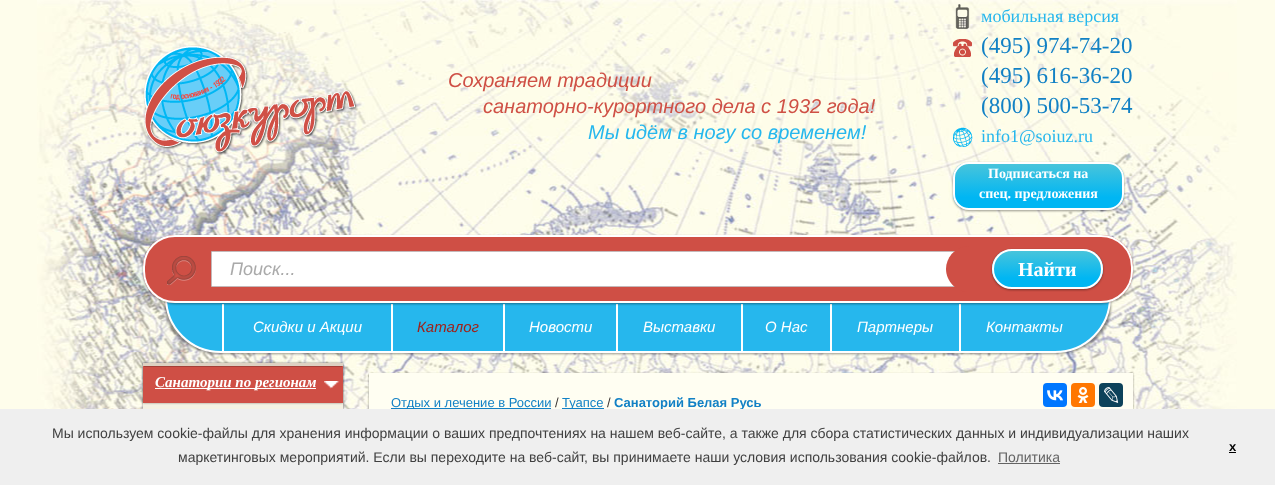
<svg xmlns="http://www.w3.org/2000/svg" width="1275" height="485">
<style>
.a{font:italic 20px Liberation Sans;fill:#cf5045}
.b{font:italic 20px Liberation Sans;fill:#26b7ed}
.c{font:18px Liberation Serif;fill:#26b7ed}
.d{font:23px Liberation Serif;fill:#1281c5}
.e{font:bold 14px Liberation Serif;fill:#fff}
.f{font:italic 18px Liberation Sans;fill:#aaa}
.g{font:bold 20px Liberation Serif;fill:#fff}
.h{font:italic 15px Liberation Sans;fill:#fff}
.i{font:italic 15px Liberation Sans;fill:#a02118}
.j{font:italic bold 15px Liberation Serif;fill:#fff}
.k{font:13px Liberation Sans;fill:#1281c5}
.l{font:13px Liberation Sans;fill:#3a3432}
.m{font:bold 13px Liberation Sans;fill:#1281c5}
.n{font:14px Liberation Sans;fill:#404040}
.o{font:14px Liberation Sans;fill:#636363}
.p{font:bold 13px Liberation Sans;fill:#000}
</style>
<defs>
<clipPath id="clip1"><rect x="953" y="162" width="171" height="48" rx="16"/></clipPath>
<linearGradient id="g1" gradientUnits="userSpaceOnUse" x1="1039" y1="164" x2="1039" y2="208"><stop offset="0" stop-color="#48c4db"/><stop offset="0.76" stop-color="#00b6f3"/></linearGradient>
<clipPath id="clip2"><rect x="992" y="249" width="111" height="40" rx="20"/></clipPath>
<linearGradient id="g2" gradientUnits="userSpaceOnUse" x1="1048" y1="251" x2="1048" y2="287"><stop offset="0" stop-color="#48c4db"/><stop offset="0.76" stop-color="#00b6f3"/></linearGradient>
</defs>
<rect width="100%" height="100%" fill="#fefdeb"/>
<image href="1.png" x="37" y="0" width="1200" height="409"/>
<image href="2.png" x="143" y="45" width="215" height="110"/>
<image href="3.png" x="955" y="4" width="15" height="25"/>
<image href="4.png" x="953" y="39" width="19" height="18"/>
<image href="5.png" x="953" y="127" width="20" height="20"/>
<rect fill="#00000066" filter="blur(1px)" x="953" y="163" width="171" height="48" rx="16"/>
<g clip-path="url(#clip1)">
<path fill="url(#g1)" d="M953 164h171v44H953z"/>
</g>
<rect fill="none" stroke="#fff" stroke-width="2" x="954" y="163" width="169" height="46" rx="15"/>
<rect fill="#00000066" filter="blur(1px)" x="165" y="260" width="946" height="94" rx="56"/>
<path fill="#26b7ed" stroke="#fff" stroke-width="2" d="M166 260h944v37c0 30.5-24.5 55-55 55h-834c-30.5 0-55-24.5-55-55z"/>
<path fill="#fff" d="M222 304h2v48H222z"/>
<path fill="#fff" d="M391 304h2v48H391z"/>
<path fill="#fff" d="M503 304h2v48H503z"/>
<path fill="#fff" d="M616 304h2v48H616z"/>
<path fill="#fff" d="M741 304h2v48H741z"/>
<path fill="#fff" d="M830 304h2v48H830z"/>
<path fill="#fff" d="M959 304h2v48H959z"/>
<rect fill="#00000066" filter="blur(1px)" x="143" y="236" width="990" height="68" rx="32"/>
<rect fill="#cf4f45" x="143" y="235" width="990" height="68" rx="32"/>
<image href="6.png" x="167" y="256" width="29" height="29"/>
<rect fill="none" stroke="#fff" stroke-width="2" x="144" y="236" width="988" height="66" rx="31"/>
<path fill="#fff" d="M212 252h742v34H212z"/>
<path fill="none" stroke="#c4b8b9" d="M211.5 251.5h747v35H211.5z"/>
<path fill="#cf4f45" d="M969 246v46c-12.5 0-23-10.5-23-23c0-12.5 10.5-23 23-23z"/>
<rect fill="#00000066" filter="blur(1px)" x="992" y="250" width="111" height="40" rx="20"/>
<g clip-path="url(#clip2)">
<path fill="url(#g2)" d="M992 251h111v36H992z"/>
</g>
<rect fill="none" stroke="#fff" stroke-width="2" x="993" y="250" width="109" height="38" rx="19"/>
<path fill="#00000066" filter="blur(1px)" d="M143 364h200v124H143z"/>
<path fill="#f4f1e2" d="M143 403h200v6H143z"/>
<path fill="#00000066" filter="blur(1px)" d="M143 363h200v40H143z"/>
<path fill="#cf4f45" d="M143 366h200v37H143z"/>
<image href="7.png" x="324" y="381" width="16" height="8"/>
<path fill="#00000033" filter="blur(0.5px)" d="M144 366h198v1H144z"/>
<path fill="#ddd1c2" d="M143 363h200v3H143z"/>
<path fill="#fff" d="M155 388h161v1H155z"/>
<path fill="#00000066" filter="blur(1px)" d="M369 374h764v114H369z"/>
<path fill="#fffef2" d="M369 373h764v36H369z"/>
<path fill="#1281c5" d="M391 408h160v1H391z"/>
<path fill="#1281c5" d="M562 408h42v1H562z"/>
<rect fill="#07f" x="1043" y="383" width="24" height="24" rx="4"/>
<image href="8.png" x="1047" y="390" width="16" height="11"/>
<rect fill="#f70" x="1071" y="383" width="24" height="24" rx="4"/>
<image href="9.png" x="1077" y="387" width="12" height="16"/>
<rect fill="#0d425a" x="1099" y="383" width="24" height="24" rx="4"/>
<image href="10.png" x="1104" y="387" width="15" height="16"/>
<text class="a" x="448" y="87">Сохраняем традиции</text>
<text class="a" x="483" y="113">санаторно-курортного дела с 1932 года!</text>
<text class="b" x="588" y="139">Мы идём в ногу со временем!</text>
<text class="c" x="981" y="22">мобильная версия</text>
<text class="d" x="981" y="53">(495) 974-74-20</text>
<text class="d" x="981" y="83">(495) 616-36-20</text>
<text class="d" x="981" y="113">(800) 500-53-74</text>
<text class="c" x="981" y="142">info1@soiuz.ru</text>
<text class="e" x="988" y="178">Подписаться на</text>
<text class="e" x="979" y="198">спец. предложения</text>
<text class="f" x="230" y="275">Поиск...</text>
<text class="g" x="1018" y="276">Найти</text>
<text class="h" x="253" y="332">Скидки и Акции</text>
<text class="i" x="417" y="332">Каталог</text>
<text class="h" x="529" y="332">Новости</text>
<text class="h" x="643" y="332">Выставки</text>
<text class="h" x="765" y="332">О Нас</text>
<text class="h" x="857" y="332">Партнеры</text>
<text class="h" x="986" y="332">Контакты</text>
<text class="j" x="155" y="387">Санатории по регионам</text>
<text class="k" x="391" y="407">Отдых и лечение в России</text>
<text class="l" x="555" y="407">/</text>
<text class="k" x="562" y="407">Туапсе</text>
<text class="l" x="607" y="407">/</text>
<text class="m" x="614" y="407">Санаторий Белая Русь</text>
<path fill="#efefef" d="M0 409h1275v76H0z"/>
<text class="n" x="52" y="438">Мы используем cookie-файлы для хранения информации о ваших предпочтениях на нашем веб-сайте, а также для сбора статистических данных и индивидуализации наших</text>
<text class="n" x="178" y="462">маркетинговых мероприятий. Если вы переходите на веб-сайт, вы принимаете наши условия использования cookie-файлов.</text>
<text class="o" x="998" y="462">Политика</text>
<path fill="#636363" d="M998 463h62v1H998z"/>
<text class="p" x="1229" y="451">x</text>
<path fill="#000" d="M1229 452h7v1H1229z"/>
</svg>
